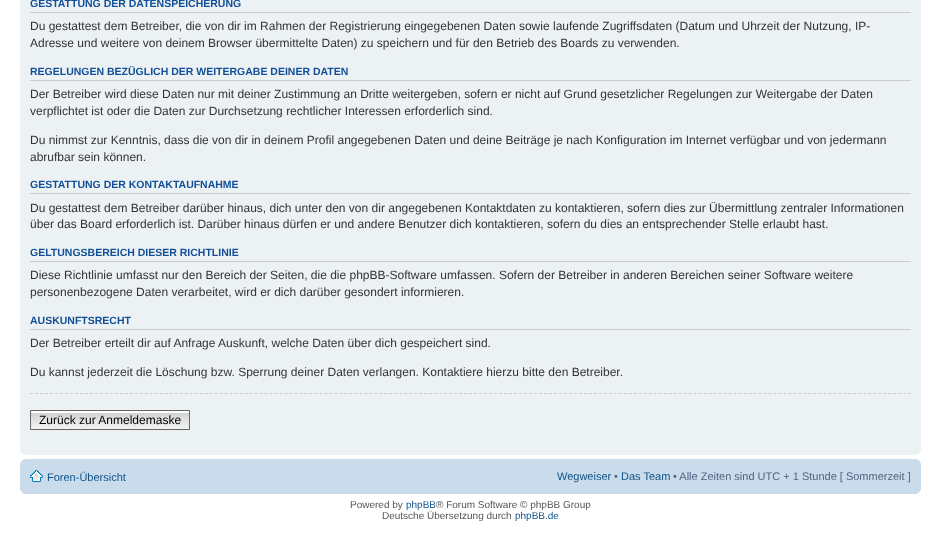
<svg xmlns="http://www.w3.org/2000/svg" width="941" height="538">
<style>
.a{font:bold 10.5px Liberation Sans;fill:#115098}
.b{font:12px Liberation Sans;fill:#333}
.c{font:12px Liberation Sans;fill:#000}
.d{font:11px Liberation Sans;fill:#105289}
.e{font:11px Liberation Sans;fill:#536482}
.f{font:10px Liberation Sans;fill:#555}
.g{font:10px Liberation Sans;fill:#105289}
</style>
<rect width="100%" height="100%" fill="#fff"/>
<path fill="#ecf1f3" d="M20 0h901v455H20z"/>
<path fill="#ccc" d="M30 12h881v1H30z"/>
<path fill="#ccc" d="M30 80h881v1H30z"/>
<path fill="#ccc" d="M30 193h881v1H30z"/>
<path fill="#ccc" d="M30 261h881v1H30z"/>
<path fill="#ccc" d="M30 329h881v1H30z"/>
<path fill="none" stroke="#ccc" stroke-dasharray="3 1.99" d="M30 393.5h881"/>
<image href="1.png" x="31" y="412" width="158" height="17"/>
<path fill="#fafafa" d="M31 411h158v1H31z"/>
<path fill="none" stroke="#666" d="M30.5 410.5h159v19H30.5z"/>
<image href="2.png" x="20" y="450" width="5" height="5"/>
<image href="3.png" x="916" y="450" width="5" height="5"/>
<path fill="#cadceb" d="M20 459h901v35H20z"/>
<image href="4.png" x="20" y="459" width="5" height="5"/>
<image href="5.png" x="916" y="459" width="5" height="5"/>
<image href="6.png" x="30" y="470" width="13" height="12"/>
<image href="7.png" x="20" y="489" width="5" height="5"/>
<image href="8.png" x="916" y="489" width="5" height="5"/>
<text class="a" x="30" y="7">GESTATTUNG DER DATENSPEICHERUNG</text>
<text class="b" x="30" y="30">Du gestattest dem Betreiber, die von dir im Rahmen der Registrierung eingegebenen Daten sowie laufende Zugriffsdaten (Datum und Uhrzeit der Nutzung, IP-</text>
<text class="b" x="30" y="47">Adresse und weitere von deinem Browser übermittelte Daten) zu speichern und für den Betrieb des Boards zu verwenden.</text>
<text class="a" x="30" y="75">REGELUNGEN BEZÜGLICH DER WEITERGABE DEINER DATEN</text>
<text class="b" x="30" y="98">Der Betreiber wird diese Daten nur mit deiner Zustimmung an Dritte weitergeben, sofern er nicht auf Grund gesetzlicher Regelungen zur Weitergabe der Daten</text>
<text class="b" x="30" y="115">verpflichtet ist oder die Daten zur Durchsetzung rechtlicher Interessen erforderlich sind.</text>
<text class="b" x="30" y="144">Du nimmst zur Kenntnis, dass die von dir in deinem Profil angegebenen Daten und deine Beiträge je nach Konfiguration im Internet verfügbar und von jedermann</text>
<text class="b" x="30" y="161">abrufbar sein können.</text>
<text class="a" x="30" y="188">GESTATTUNG DER KONTAKTAUFNAHME</text>
<text class="b" x="30" y="212">Du gestattest dem Betreiber darüber hinaus, dich unter den von dir angegebenen Kontaktdaten zu kontaktieren, sofern dies zur Übermittlung zentraler Informationen</text>
<text class="b" x="30" y="228">über das Board erforderlich ist. Darüber hinaus dürfen er und andere Benutzer dich kontaktieren, sofern du dies an entsprechender Stelle erlaubt hast.</text>
<text class="a" x="30" y="256">GELTUNGSBEREICH DIESER RICHTLINIE</text>
<text class="b" x="30" y="279">Diese Richtlinie umfasst nur den Bereich der Seiten, die die phpBB-Software umfassen. Sofern der Betreiber in anderen Bereichen seiner Software weitere</text>
<text class="b" x="30" y="296">personenbezogene Daten verarbeitet, wird er dich darüber gesondert informieren.</text>
<text class="a" x="30" y="324">AUSKUNFTSRECHT</text>
<text class="b" x="30" y="347">Der Betreiber erteilt dir auf Anfrage Auskunft, welche Daten über dich gespeichert sind.</text>
<text class="b" x="30" y="376">Du kannst jederzeit die Löschung bzw. Sperrung deiner Daten verlangen. Kontaktiere hierzu bitte den Betreiber.</text>
<text class="c" x="39" y="424">Zurück zur Anmeldemaske</text>
<text class="d" x="47" y="481">Foren-Übersicht</text>
<text class="d" x="557" y="480">Wegweiser</text>
<text class="e" x="614" y="480">•</text>
<text class="d" x="621" y="480">Das Team</text>
<text class="e" x="673" y="480">• Alle Zeiten sind UTC + 1 Stunde [ Sommerzeit ]</text>
<text class="f" x="350" y="508">Powered by</text>
<text class="g" x="406" y="508">phpBB</text>
<text class="f" x="436" y="508">® Forum Software © phpBB Group</text>
<text class="f" x="382" y="519">Deutsche Übersetzung durch</text>
<text class="g" x="515" y="519">phpBB.de</text>
</svg>
